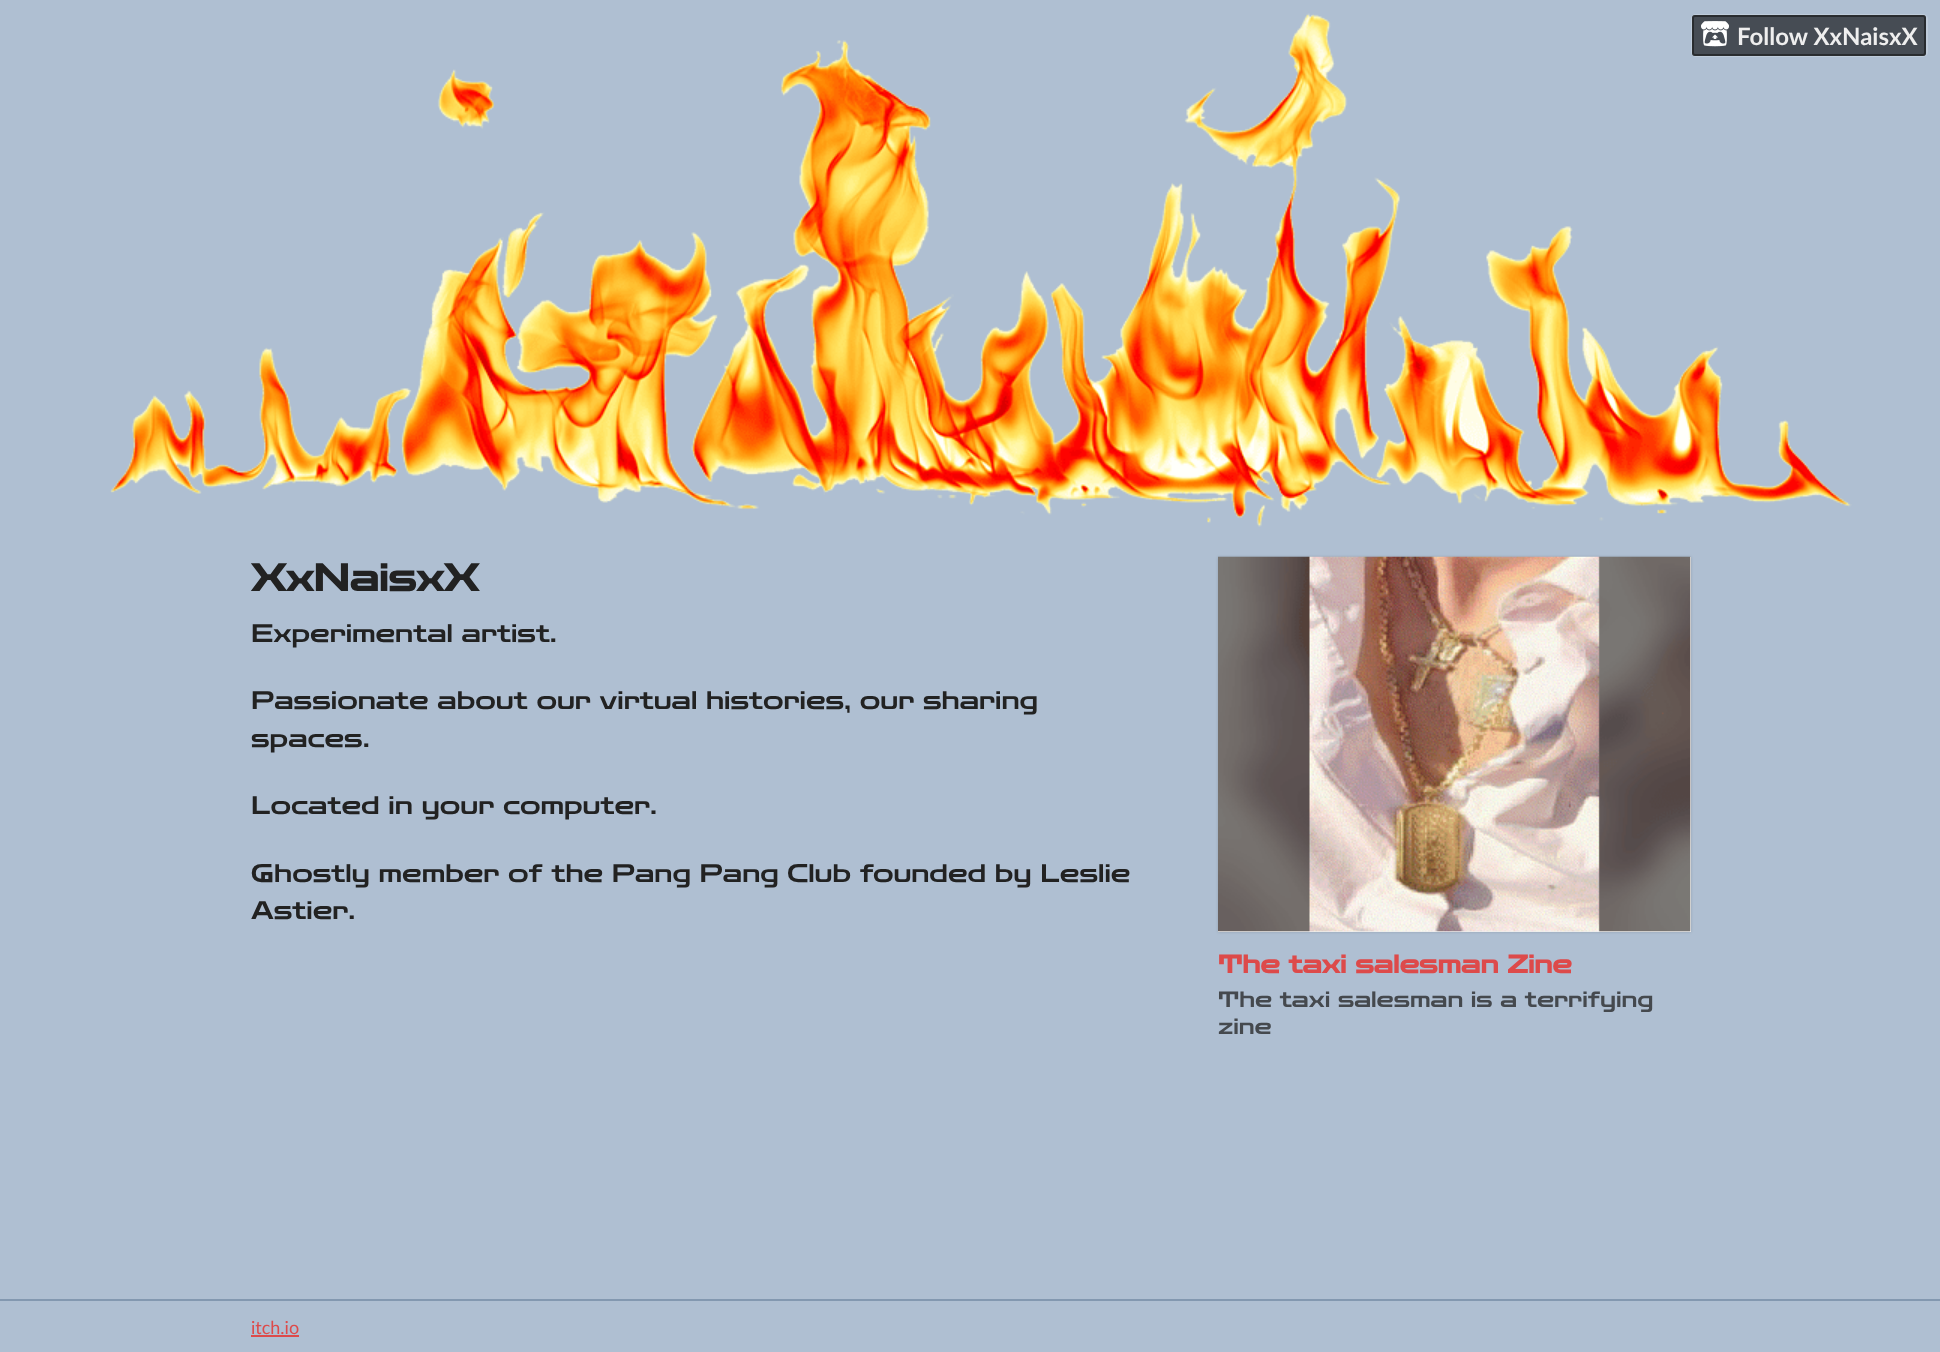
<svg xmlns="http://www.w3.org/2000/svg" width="1940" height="1352">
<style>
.a{font:bold 24px Lato;fill:#eee}
.b{font:bold 37.5px Zen Dots;fill:#222}
.c{font:24.95px Zen Dots;fill:#222}
.d{font:bold 24.95px Zen Dots;fill:#dd4a4a}
.e{font:21.8px Zen Dots;fill:#45494e}
.f{font:18px Lato;fill:#dd4a4a}
</style>
<rect width="100%" height="100%" fill="#afbfd2"/>
<image href="2.png" x="110" y="13" width="1742" height="514"/>
<rect fill="none" stroke="#bfccdb" stroke-width="2" x="1692" y="15" width="235" height="41" rx="4"/>
<rect fill="#00000099" x="1692" y="15" width="234" height="41" rx="3"/>
<rect fill="none" stroke="#0a0a0a80" stroke-width="2" x="1693" y="16" width="232" height="39" rx="2"/>
<image href="1.png" x="1701" y="21" width="28" height="26"/>
<path fill="#00000026" filter="blur(1.5px)" d="M1218 557h473v375H1218z"/>
<path fill="#eee" d="M1218 557h473v375H1218z"/>
<image href="3.png" x="1218" y="556" width="473" height="376"/>
<path fill="#8398b0" d="M0 1299h1940v2H0z"/>
<path fill="#dd4a4a" d="M251 1335h48v2H251z"/>
<text class="a" x="1737" y="45">Follow XxNaisxX</text>
<text class="b" x="251" y="591">XxNaisxX</text>
<text class="c" x="251" y="642">Experimental artist.</text>
<text class="c" x="251" y="709">Passionate about our virtual histories, our sharing</text>
<text class="c" x="251" y="747">spaces.</text>
<text class="c" x="251" y="814">Located in your computer.</text>
<text class="c" x="251" y="882">Ghostly member of the Pang Pang Club founded by Leslie</text>
<text class="c" x="251" y="919">Astier.</text>
<text class="d" x="1218" y="973">The taxi salesman Zine</text>
<text class="e" x="1218" y="1007">The taxi salesman is a terrifying</text>
<text class="e" x="1218" y="1034">zine</text>
<text class="f" x="251" y="1334">itch.io</text>
</svg>
